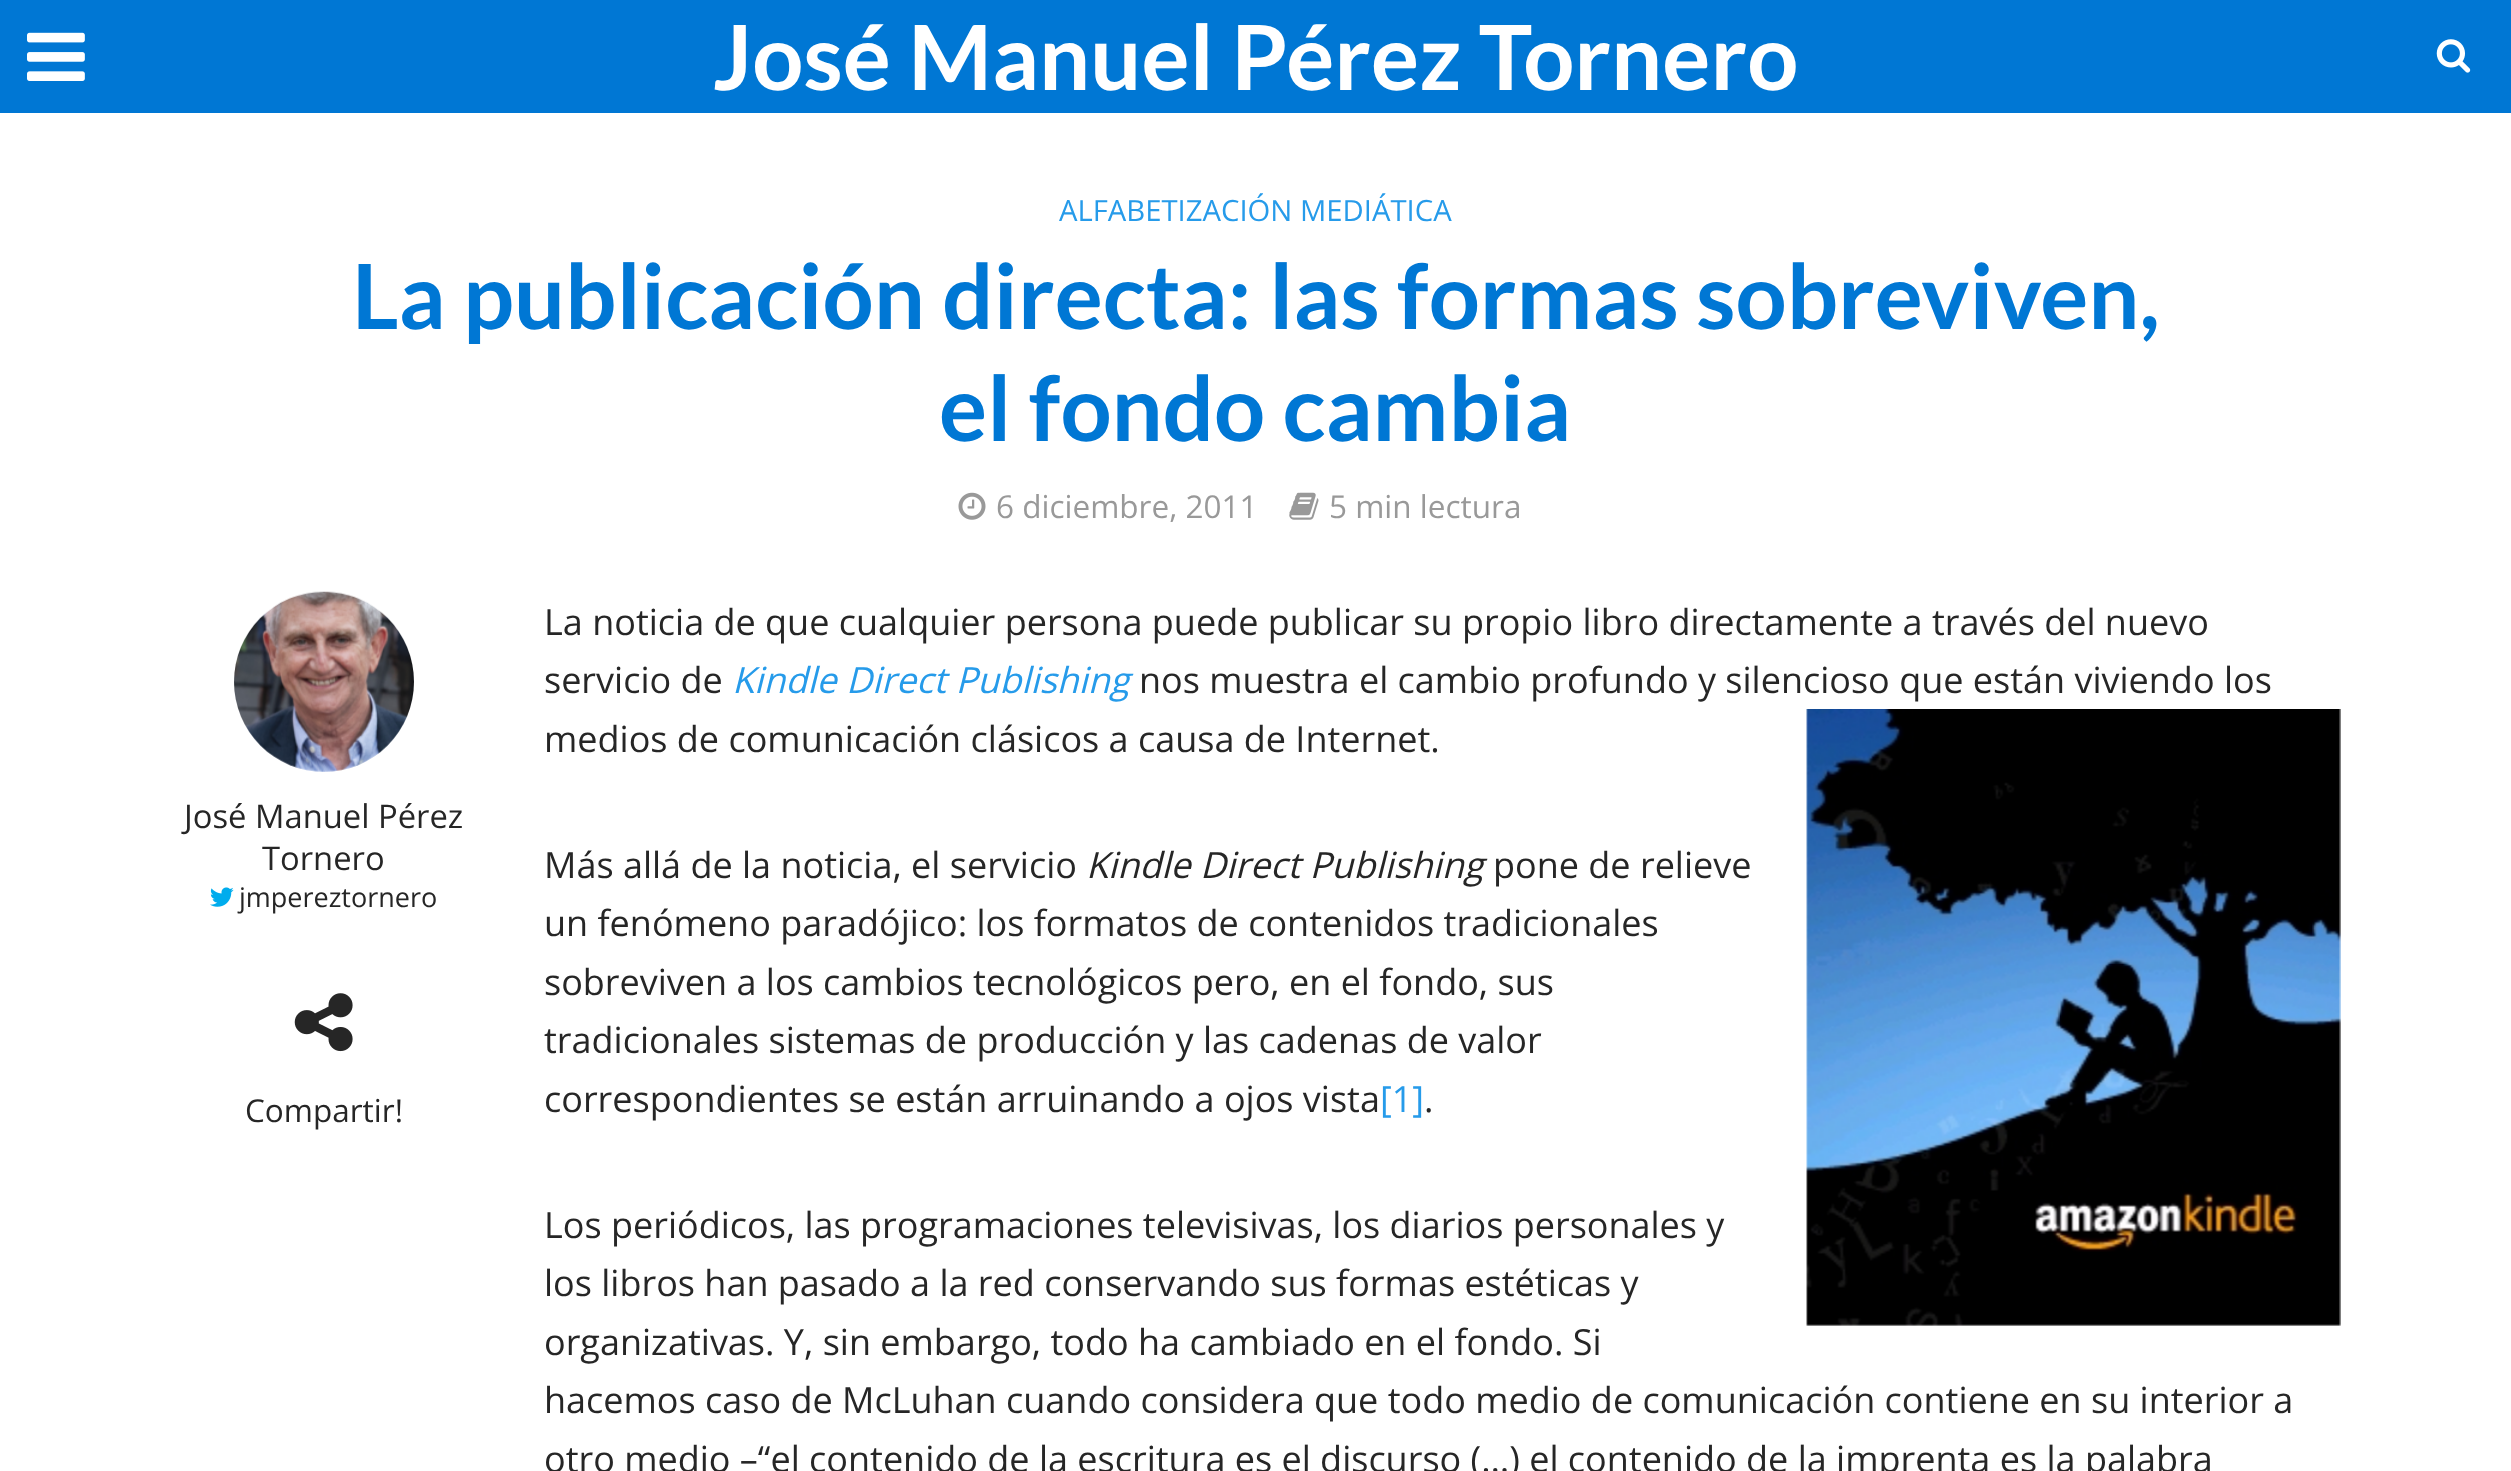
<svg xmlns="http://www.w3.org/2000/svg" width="2511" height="1471">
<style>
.a{font:bold 90px Lato;fill:#fff}
.b{font:29.25px Open Sans;fill:#269bea}
.c{font:bold 90px Lato;fill:#0077d4}
.d{font:31.5px Open Sans;fill:#999}
.e{font:32.75px Open Sans;fill:#262626}
.f{font:27px Open Sans;fill:#262626}
.g{font:31.5px Open Sans;fill:#262626}
.h{font:36px Open Sans;fill:#262626}
.i{font:italic 36px Open Sans;fill:#269bea}
.j{font:italic 36px Open Sans;fill:#262626}
.k{font:36px Open Sans;fill:#269bea}
</style>
<rect width="100%" height="100%" fill="#fff"/>
<path fill="#0077d4" d="M0 0h2511v113H0z"/>
<image href="1.png" x="27" y="32" width="58" height="49"/>
<image href="2.png" x="2436" y="39" width="35" height="34"/>
<image href="3.png" x="958" y="492" width="28" height="28"/>
<image href="4.png" x="1289" y="492" width="30" height="28"/>
<image href="5.png" x="234" y="591" width="180" height="181"/>
<image href="6.png" x="210" y="887" width="24" height="20"/>
<image href="7.png" x="294" y="993" width="59" height="59"/>
<image href="8.png" x="1806" y="709" width="535" height="617"/>
<text class="a" x="713" y="90">José Manuel Pérez Tornero</text>
<text class="b" x="1059" y="221">ALFABETIZACIÓN MEDIÁTICA</text>
<text class="c" x="352" y="329">La publicación directa: las formas sobreviven,</text>
<text class="c" x="939" y="441">el fondo cambia</text>
<text class="d" x="996" y="518">6 diciembre, 2011</text>
<text class="d" x="1329" y="518">5 min lectura</text>
<text class="e" x="184" y="828">José Manuel Pérez</text>
<text class="e" x="262" y="870">Tornero</text>
<text class="f" x="239" y="907">jmpereztornero</text>
<text class="g" x="245" y="1122">Compartir!</text>
<text class="h" x="544" y="635">La noticia de que cualquier persona puede publicar su propio libro directamente a través del nuevo</text>
<text class="h" x="544" y="693">servicio de</text>
<text class="i" x="732" y="693">Kindle Direct Publishing</text>
<text class="h" x="1139" y="693">nos muestra el cambio profundo y silencioso que están viviendo los</text>
<text class="h" x="544" y="752">medios de comunicación clásicos a causa de Internet.</text>
<text class="h" x="544" y="878">Más allá de la noticia, el servicio</text>
<text class="j" x="1086" y="878">Kindle Direct Publishing</text>
<text class="h" x="1493" y="878">pone de relieve</text>
<text class="h" x="544" y="936">un fenómeno paradójico: los formatos de contenidos tradicionales</text>
<text class="h" x="544" y="995">sobreviven a los cambios tecnológicos pero, en el fondo, sus</text>
<text class="h" x="544" y="1053">tradicionales sistemas de producción y las cadenas de valor</text>
<text class="h" x="544" y="1112">correspondientes se están arruinando a ojos vista</text>
<text class="k" x="1380" y="1112">[1]</text>
<text class="h" x="1424" y="1112">.</text>
<text class="h" x="544" y="1238">Los periódicos, las programaciones televisivas, los diarios personales y</text>
<text class="h" x="544" y="1296">los libros han pasado a la red conservando sus formas estéticas y</text>
<text class="h" x="544" y="1355">organizativas. Y, sin embargo, todo ha cambiado en el fondo. Si</text>
<text class="h" x="544" y="1413">hacemos caso de McLuhan cuando considera que todo medio de comunicación contiene en su interior a</text>
<text class="h" x="544" y="1472">otro medio –“el contenido de la escritura es el discurso (…) el contenido de la imprenta es la palabra</text>
</svg>
